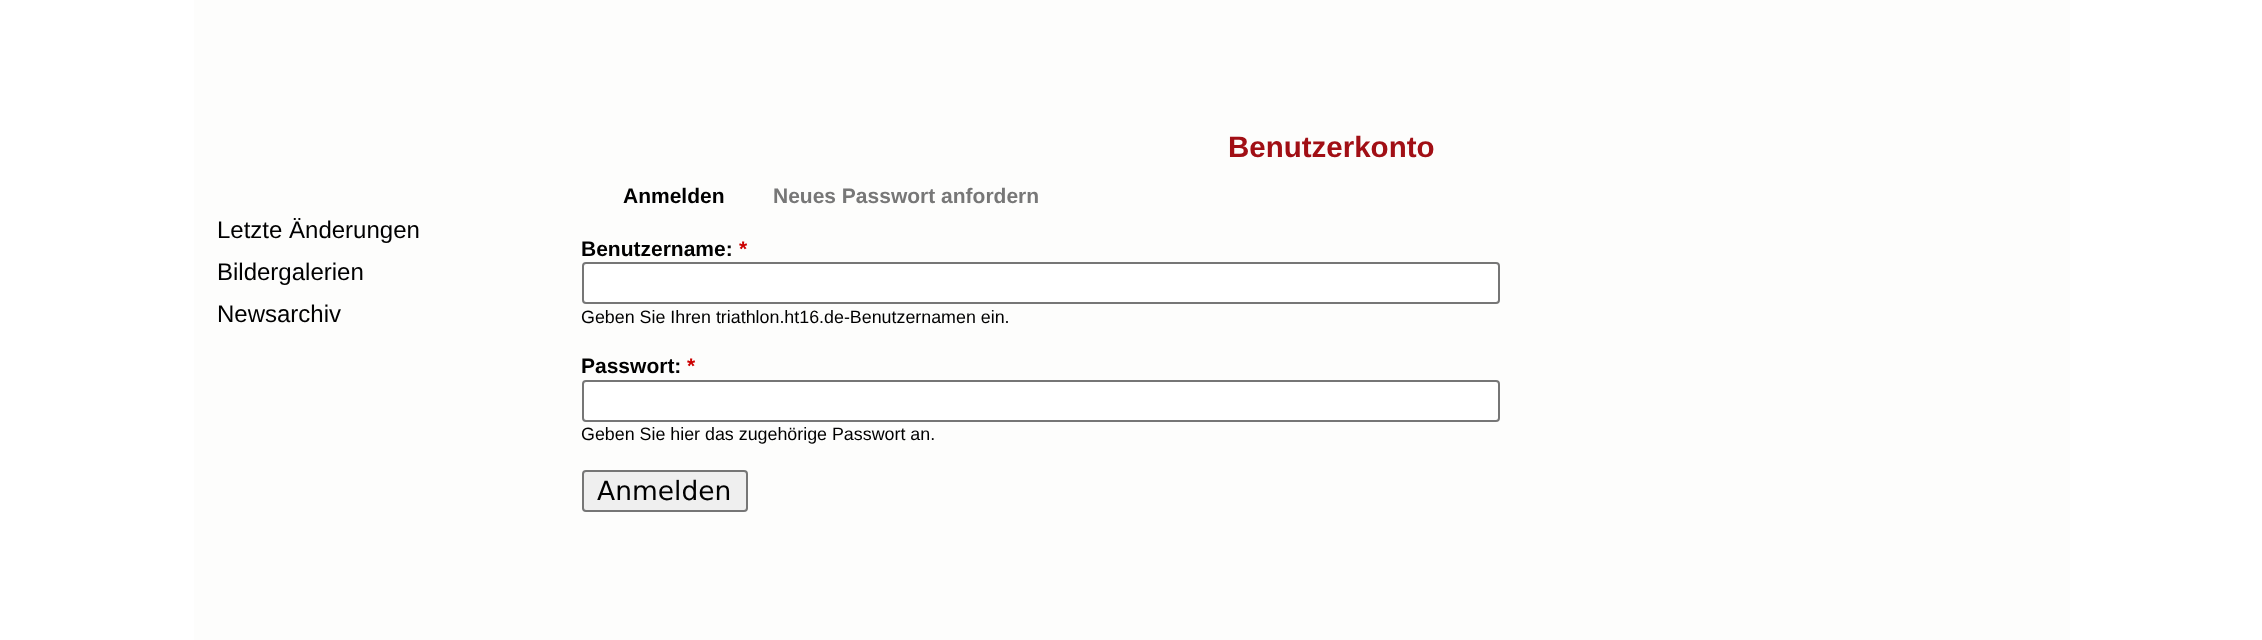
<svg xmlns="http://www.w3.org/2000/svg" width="2262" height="640">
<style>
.a{font:24px Liberation Sans;fill:#000}
.b{font:bold 29.5px Liberation Sans;fill:#a10f15}
.c{font:bold 21px Liberation Sans;fill:#000}
.d{font:bold 21px Liberation Sans;fill:#777}
.e{font:bold 21px Liberation Sans;fill:#c00}
.f{font:17.85px Liberation Sans;fill:#000}
.g{font:26.5px DejaVu Sans;fill:#000}
</style>
<rect width="100%" height="100%" fill="#fff"/>
<path fill="#fdfdfc" d="M194 0h1876v640H194z"/>
<rect fill="#fff" stroke="#767676" stroke-width="2" x="583" y="263" width="916" height="40" rx="3"/>
<rect fill="#fff" stroke="#767676" stroke-width="2" x="583" y="381" width="916" height="40" rx="3"/>
<rect fill="#efefef" stroke="#767676" stroke-width="2" x="583" y="471" width="164" height="40" rx="3"/>
<text class="a" x="217" y="238">Letzte Änderungen</text>
<text class="a" x="217" y="280">Bildergalerien</text>
<text class="a" x="217" y="322">Newsarchiv</text>
<text class="b" x="1228" y="157">Benutzerkonto</text>
<text class="c" x="623" y="203">Anmelden</text>
<text class="d" x="773" y="203">Neues Passwort anfordern</text>
<text class="c" x="581" y="256">Benutzername:</text>
<text class="e" x="739" y="256">*</text>
<text class="f" x="581" y="323">Geben Sie Ihren triathlon.ht16.de-Benutzernamen ein.</text>
<text class="c" x="581" y="373">Passwort:</text>
<text class="e" x="687" y="373">*</text>
<text class="f" x="581" y="440">Geben Sie hier das zugehörige Passwort an.</text>
<text class="g" x="597" y="500">Anmelden</text>
</svg>
